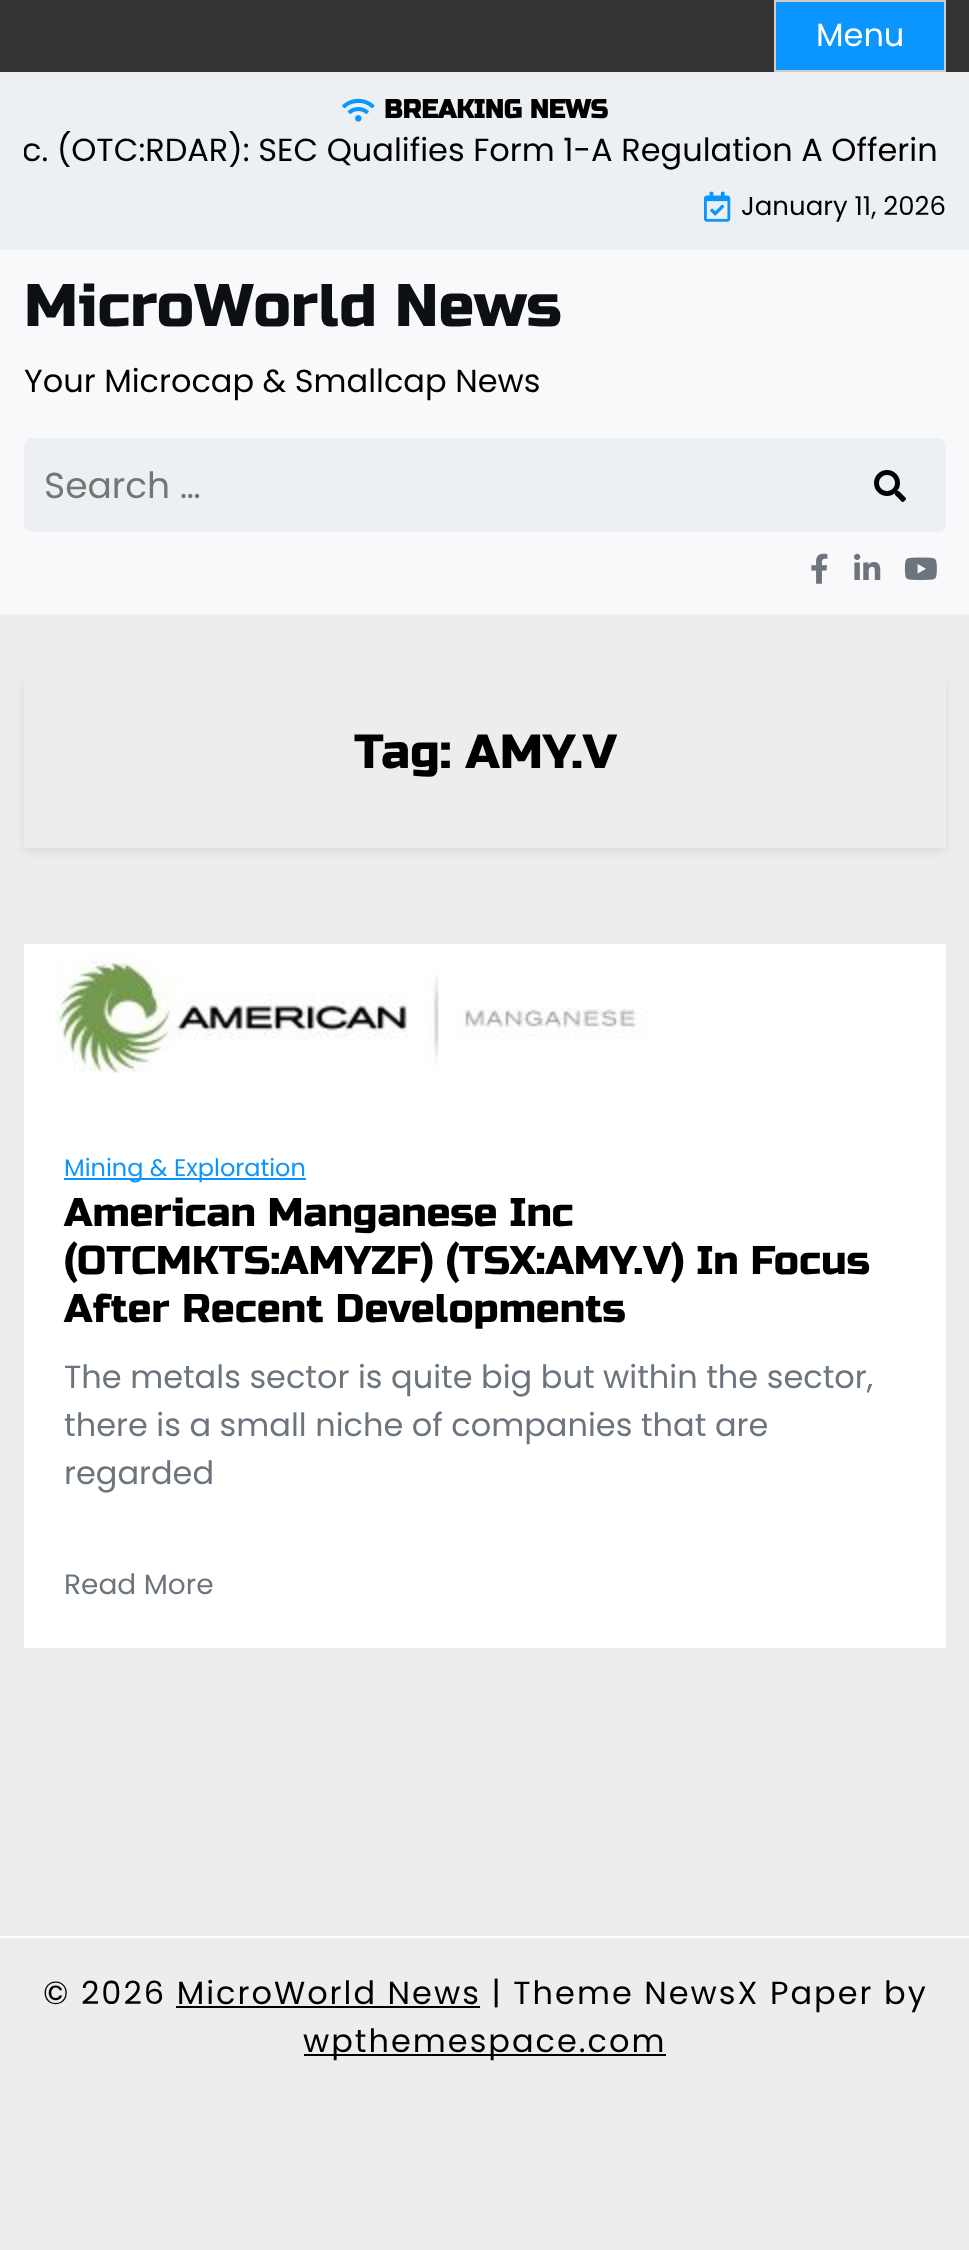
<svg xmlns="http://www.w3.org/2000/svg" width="969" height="2250">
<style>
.a{font:32px Poppins;fill:#fff}
.b{font:bold 26px Russo One;fill:#000}
.c{font:32px Poppins;fill:#000}
.d{font:26px Poppins;fill:#000}
.e{font:60px Russo One;fill:#0d1013}
.f{font:36px Poppins;fill:#757575}
.g{font:48px Russo One;fill:#000}
.h{font:24px Poppins;fill:#0a95ff}
.i{font:40px Russo One;fill:#000}
.j{font:32px Poppins;fill:#6c757d}
.k{font:28px Poppins;fill:#6c757d}
.l{font:32px Poppins;letter-spacing:2px;fill:#000}
</style>
<defs>
<clipPath id="clip1"><path d="M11 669h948v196h-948zm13 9h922v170h-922z" clip-rule="evenodd"/></clipPath>
<clipPath id="clip2"><path d="M24 128h922v60H24z"/></clipPath>
</defs>
<rect width="100%" height="100%" fill="#ededed"/>
<path fill="#333" d="M0 0h969v72H0z"/>
<path fill="#0a95ff" stroke="#ccc" stroke-width="2" d="M775 1h170v70H775z"/>
<path fill="#ecf0f3" d="M0 72h969v178H0z"/>
<image href="1.png" x="342" y="98" width="33" height="24"/>
<image href="2.png" x="704" y="191" width="27" height="31"/>
<path fill="#f9f9fc" d="M0 250h969v364H0z"/>
<rect fill="#ecf0f3" x="24" y="438" width="922" height="94" rx="8"/>
<image href="3.png" x="874" y="470" width="32" height="32"/>
<image href="4.png" x="811" y="553" width="17" height="31"/>
<image href="5.png" x="854" y="553" width="27" height="27"/>
<image href="6.png" x="904" y="557" width="33" height="23"/>
<g clip-path="url(#clip1)">
<path fill="#00000012" filter="blur(4px)" d="M24 682h922v170H24z"/>
</g>
<path fill="#fff" d="M24 944h922v704H24z"/>
<image href="7.png" x="55" y="952" width="593" height="122"/>
<path fill="#0a95ff" d="M64 1178h242v2H64z"/>
<path fill="#fff" d="M0 1936h969v2H0z"/>
<path fill="#000" d="M176 2006h304v2H176z"/>
<path fill="#000" d="M304 2054h362v2H304z"/>
<text class="a" x="816" y="46">Menu</text>
<text class="b" x="384" y="118">BREAKING NEWS</text>
<g clip-path="url(#clip2)">
<text class="c" x="22" y="161">c. (OTC:RDAR): SEC Qualifies Form 1-A Regulation A Offerin</text>
</g>
<text class="d" x="741" y="215">January 11, 2026</text>
<text class="e" x="24" y="326">MicroWorld News</text>
<text class="c" x="24" y="392">Your Microcap &amp; Smallcap News</text>
<text class="f" x="44" y="498">Search …</text>
<text class="g" x="354" y="768">Tag: AMY.V</text>
<text class="h" x="64" y="1176">Mining &amp; Exploration</text>
<text class="i" x="64" y="1226">American Manganese Inc</text>
<text class="i" x="64" y="1274">(OTCMKTS:AMYZF) (TSX:AMY.V) In Focus</text>
<text class="i" x="64" y="1322">After Recent Developments</text>
<text class="j" x="64" y="1388">The metals sector is quite big but within the sector,</text>
<text class="j" x="64" y="1436">there is a small niche of companies that are</text>
<text class="j" x="64" y="1484">regarded</text>
<text class="k" x="64" y="1594">Read More</text>
<text class="l" x="43" y="2004">© 2026 MicroWorld News | Theme NewsX Paper by</text>
<text class="l" x="303" y="2052">wpthemespace.com</text>
</svg>
